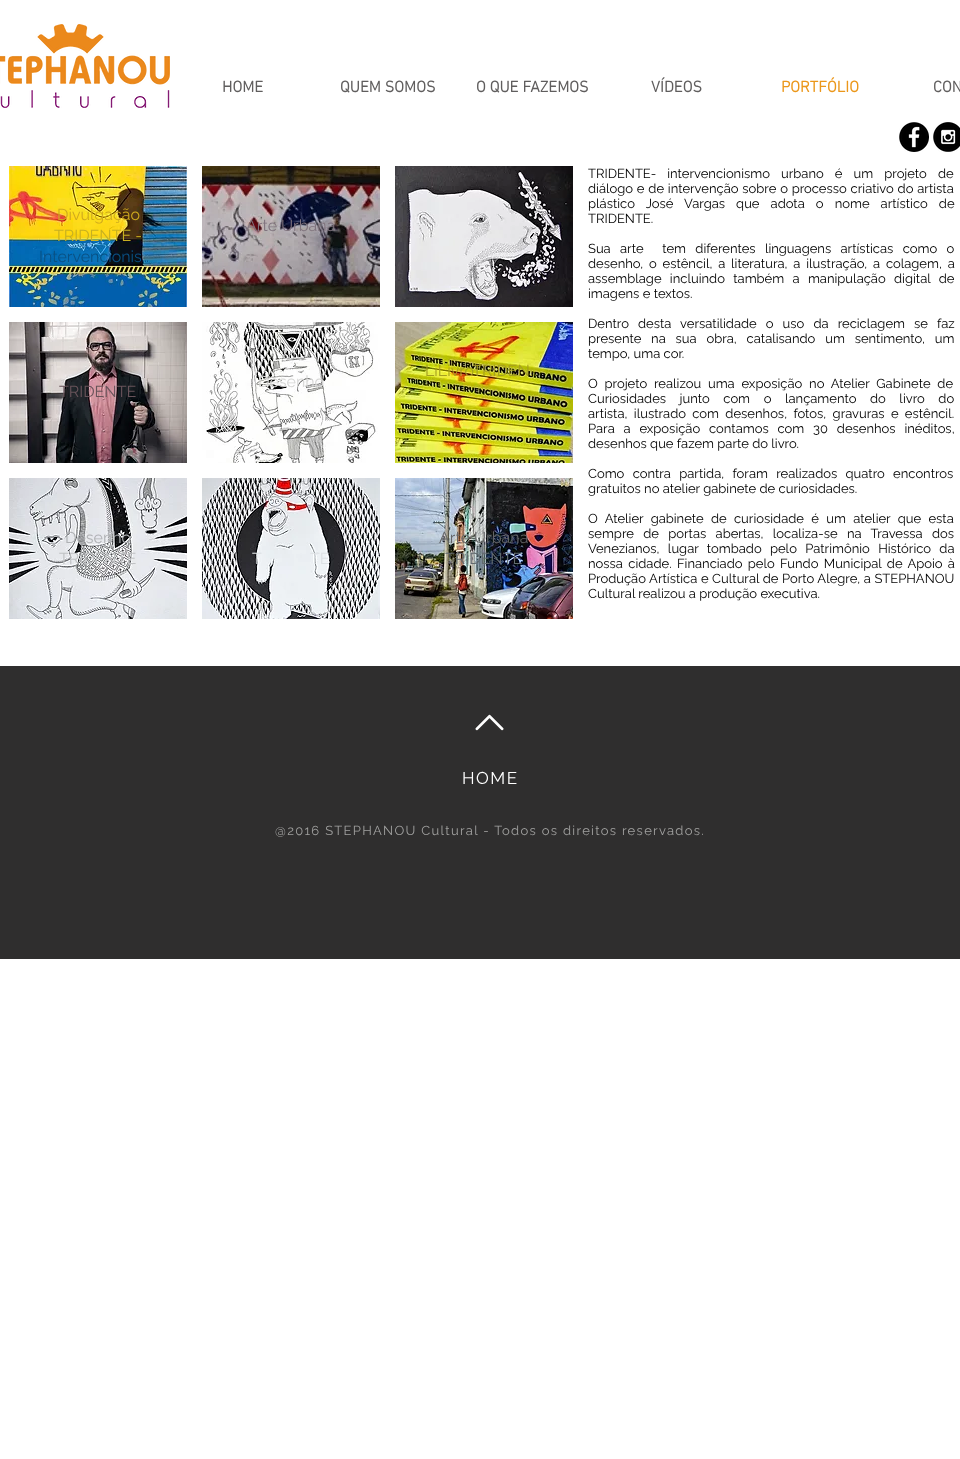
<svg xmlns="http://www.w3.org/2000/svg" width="960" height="1459">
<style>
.a{font:bold 16px 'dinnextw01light';fill:#605e5e}
.b{font:bold 16px 'dinnextw01light';fill:#eb971a}
.c{font:16px Raleway;fill:#cea91e}
.d{font:16px Raleway;fill:#c7b021}
.e{font:16px Raleway;fill:#095184}
.f{font:16px Raleway;fill:#80747e}
.g{font:16px Raleway;fill:#a59f21}
.h{font:16px Raleway;fill:#d6d6d5}
.i{font:16px Raleway;fill:#68535a}
.j{font:16px Raleway;fill:#afb1b4}
.k{font:16px Raleway;fill:#c0c2c4}
.l{font:16px Raleway;fill:#dde1e4}
.m{font:16px Raleway;fill:#636466}
.n{font:16px Raleway;fill:#626a6f}
.o{font:13px Raleway;fill:#000}
.p{font:17px Raleway;letter-spacing:1.5px;fill:#fff}
.q{font:13px Raleway;letter-spacing:1.3px;fill:#a0a09f}
</style>
<rect width="100%" height="100%" fill="#fff"/>
<image href="1.png" x="0" y="24" width="170" height="84"/>
<image href="2.png" x="899" y="122" width="30" height="30"/>
<image href="3.png" x="933" y="122" width="27" height="30"/>
<image href="4.png" x="9" y="166" width="178" height="141"/>
<image href="5.png" x="202" y="166" width="178" height="141"/>
<image href="6.png" x="395" y="166" width="178" height="141"/>
<image href="7.png" x="395" y="322" width="178" height="141"/>
<image href="8.png" x="202" y="322" width="178" height="141"/>
<image href="9.png" x="9" y="322" width="178" height="141"/>
<image href="10.png" x="9" y="478" width="178" height="141"/>
<image href="11.png" x="202" y="478" width="178" height="141"/>
<image href="12.png" x="395" y="478" width="178" height="141"/>
<path fill="#2f2e2e" d="M0 666h960v293H0z"/>
<image href="13.png" x="475" y="714" width="29" height="17"/>
<text class="a" x="222" y="92">HOME</text>
<text class="a" x="340" y="92">QUEM SOMOS</text>
<text class="a" x="476" y="92">O QUE FAZEMOS</text>
<text class="a" x="651" y="92">VÍDEOS</text>
<text class="b" x="781" y="92">PORTFÓLIO</text>
<text class="a" x="933" y="92">CON</text>
<text class="c" x="57" y="220">Divulgação</text>
<text class="d" x="54" y="241">TRIDENTE -</text>
<text class="e" x="39" y="262">Intervencionis…</text>
<text class="f" x="246" y="231">Arte Urbana</text>
<text class="g" x="425" y="376">LiLivroTRIDEN…</text>
<text class="h" x="258" y="387">Desenho</text>
<text class="i" x="59" y="397">TRIDENTE</text>
<text class="j" x="65" y="543">Desenho</text>
<text class="k" x="59" y="564">TRIDENTE</text>
<text class="l" x="252" y="564">T</text>
<text class="l" x="310" y="564">TE</text>
<text class="m" x="439" y="543">Arte Urbana</text>
<text class="n" x="445" y="564">TRIDENTE</text>
<text class="o" x="588" y="178" word-spacing="7.75">TRIDENTE- intervencionismo urbano é um projeto de</text>
<text class="o" x="588" y="193" word-spacing="0.5">diálogo e de intervenção sobre o processo criativo do artista</text>
<text class="o" x="588" y="208" word-spacing="7.75">plástico José Vargas que adota o nome artístico de</text>
<text class="o" x="588" y="223">TRIDENTE.</text>
<text class="o" xml:space="preserve" x="588" y="253" word-spacing="6">Sua arte  tem diferentes linguagens artísticas como o</text>
<text class="o" x="588" y="268" word-spacing="2.5">desenho, o estêncil, a literatura, a ilustração, a colagem, a</text>
<text class="o" x="588" y="283" word-spacing="5">assemblage incluindo também a manipulação digital de</text>
<text class="o" x="588" y="298">imagens e textos.</text>
<text class="o" x="588" y="328" word-spacing="5.75">Dentro desta versatilidade o uso da reciclagem se faz</text>
<text class="o" x="588" y="343" word-spacing="6.5">presente na sua obra, catalisando um sentimento, um</text>
<text class="o" x="588" y="358">tempo, uma cor.</text>
<text class="o" x="588" y="388" word-spacing="3.5">O projeto realizou uma exposição no Atelier Gabinete de</text>
<text class="o" x="588" y="403" word-spacing="10.25">Curiosidades junto com o lançamento do livro do</text>
<text class="o" x="588" y="418" word-spacing="3">artista, ilustrado com desenhos, fotos, gravuras e estêncil.</text>
<text class="o" x="588" y="433" word-spacing="5.5">Para a exposição contamos com 30 desenhos inéditos,</text>
<text class="o" x="588" y="448">desenhos que fazem parte do livro.</text>
<text class="o" x="588" y="478" word-spacing="5">Como contra partida, foram realizados quatro encontros</text>
<text class="o" x="588" y="493">gratuitos no atelier gabinete de curiosidades.</text>
<text class="o" x="588" y="523" word-spacing="4">O Atelier gabinete de curiosidade é um atelier que esta</text>
<text class="o" x="588" y="538" word-spacing="6">sempre de portas abertas, localiza-se na Travessa dos</text>
<text class="o" x="588" y="553" word-spacing="5">Venezianos, lugar tombado pelo Patrimônio Histórico da</text>
<text class="o" x="588" y="568" word-spacing="2">nossa cidade. Financiado pelo Fundo Municipal de Apoio à</text>
<text class="o" x="588" y="583" word-spacing="0.25">Produção Artística e Cultural de Porto Alegre, a STEPHANOU</text>
<text class="o" x="588" y="598">Cultural realizou a produção executiva.</text>
<text class="p" x="462" y="784">HOME</text>
<text class="q" x="275" y="835">@2016 STEPHANOU Cultural - Todos os direitos reservados.</text>
</svg>
